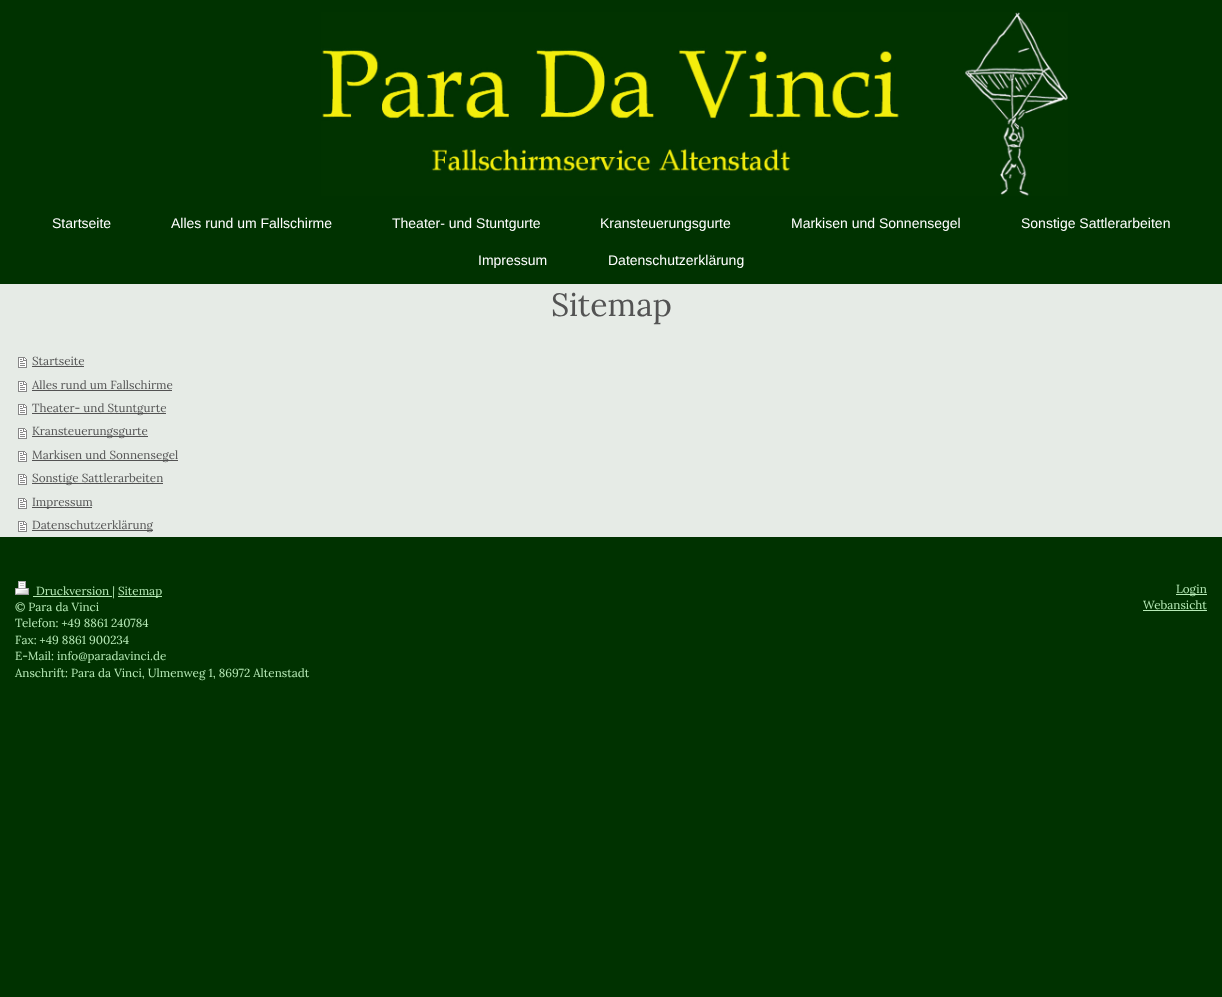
<svg xmlns="http://www.w3.org/2000/svg" width="1222" height="997">
<style>
.a{font:14px Liberation Sans;fill:#fff}
.b{font:32px Lora;fill:#535353}
.c{font:11.7px Lora;fill:#535353}
.d{font:11.7px Lora;fill:#b7ebb7}
</style>
<rect width="100%" height="100%" fill="#003200"/>
<image href="1.png" x="321" y="12" width="747" height="184"/>
<path fill="#e6ebe6" d="M0 284h1222v253H0z"/>
<image href="2.png" x="18" y="357" width="9" height="11"/>
<path fill="#535353" d="M32 366h52v1H32z"/>
<image href="2.png" x="18" y="381" width="9" height="11"/>
<path fill="#535353" d="M32 390h140v1H32z"/>
<image href="2.png" x="18" y="404" width="9" height="11"/>
<path fill="#535353" d="M32 413h134v1H32z"/>
<image href="2.png" x="18" y="428" width="9" height="11"/>
<path fill="#535353" d="M32 436h116v1H32z"/>
<image href="2.png" x="18" y="451" width="9" height="11"/>
<path fill="#535353" d="M32 460h146v1H32z"/>
<image href="2.png" x="18" y="474" width="9" height="11"/>
<path fill="#535353" d="M32 483h131v1H32z"/>
<image href="2.png" x="18" y="498" width="9" height="11"/>
<path fill="#535353" d="M32 507h60v1H32z"/>
<image href="2.png" x="18" y="521" width="9" height="11"/>
<path fill="#535353" d="M32 530h121v1H32z"/>
<image href="3.png" x="15" y="581" width="14" height="14"/>
<path fill="#b7ebb7" d="M33 596h79v1H33z"/>
<path fill="#b7ebb7" d="M118 596h44v1H118z"/>
<path fill="#b7ebb7" d="M1176 594h31v1H1176z"/>
<path fill="#b7ebb7" d="M1143 610h64v1H1143z"/>
<text class="a" x="52" y="228">Startseite</text>
<text class="a" x="171" y="228">Alles rund um Fallschirme</text>
<text class="a" x="392" y="228">Theater- und Stuntgurte</text>
<text class="a" x="600" y="228">Kransteuerungsgurte</text>
<text class="a" x="791" y="228">Markisen und Sonnensegel</text>
<text class="a" x="1021" y="228">Sonstige Sattlerarbeiten</text>
<text class="a" x="478" y="265">Impressum</text>
<text class="a" x="608" y="265">Datenschutzerklärung</text>
<text class="b" x="551" y="316">Sitemap</text>
<text class="c" x="32" y="365">Startseite</text>
<text class="c" x="32" y="389">Alles rund um Fallschirme</text>
<text class="c" x="32" y="412">Theater- und Stuntgurte</text>
<text class="c" x="32" y="435">Kransteuerungsgurte</text>
<text class="c" x="32" y="459">Markisen und Sonnensegel</text>
<text class="c" x="32" y="482">Sonstige Sattlerarbeiten</text>
<text class="c" x="32" y="506">Impressum</text>
<text class="c" x="32" y="529">Datenschutzerklärung</text>
<text class="d" x="36" y="595">Druckversion |</text>
<text class="d" x="118" y="595">Sitemap</text>
<text class="d" x="15" y="611">© Para da Vinci</text>
<text class="d" x="15" y="627">Telefon: +49 8861 240784</text>
<text class="d" x="15" y="644">Fax: +49 8861 900234</text>
<text class="d" x="15" y="660">E-Mail: info@paradavinci.de</text>
<text class="d" x="15" y="677">Anschrift: Para da Vinci, Ulmenweg 1, 86972 Altenstadt</text>
<text class="d" x="1176" y="593">Login</text>
<text class="d" x="1143" y="609">Webansicht</text>
</svg>
